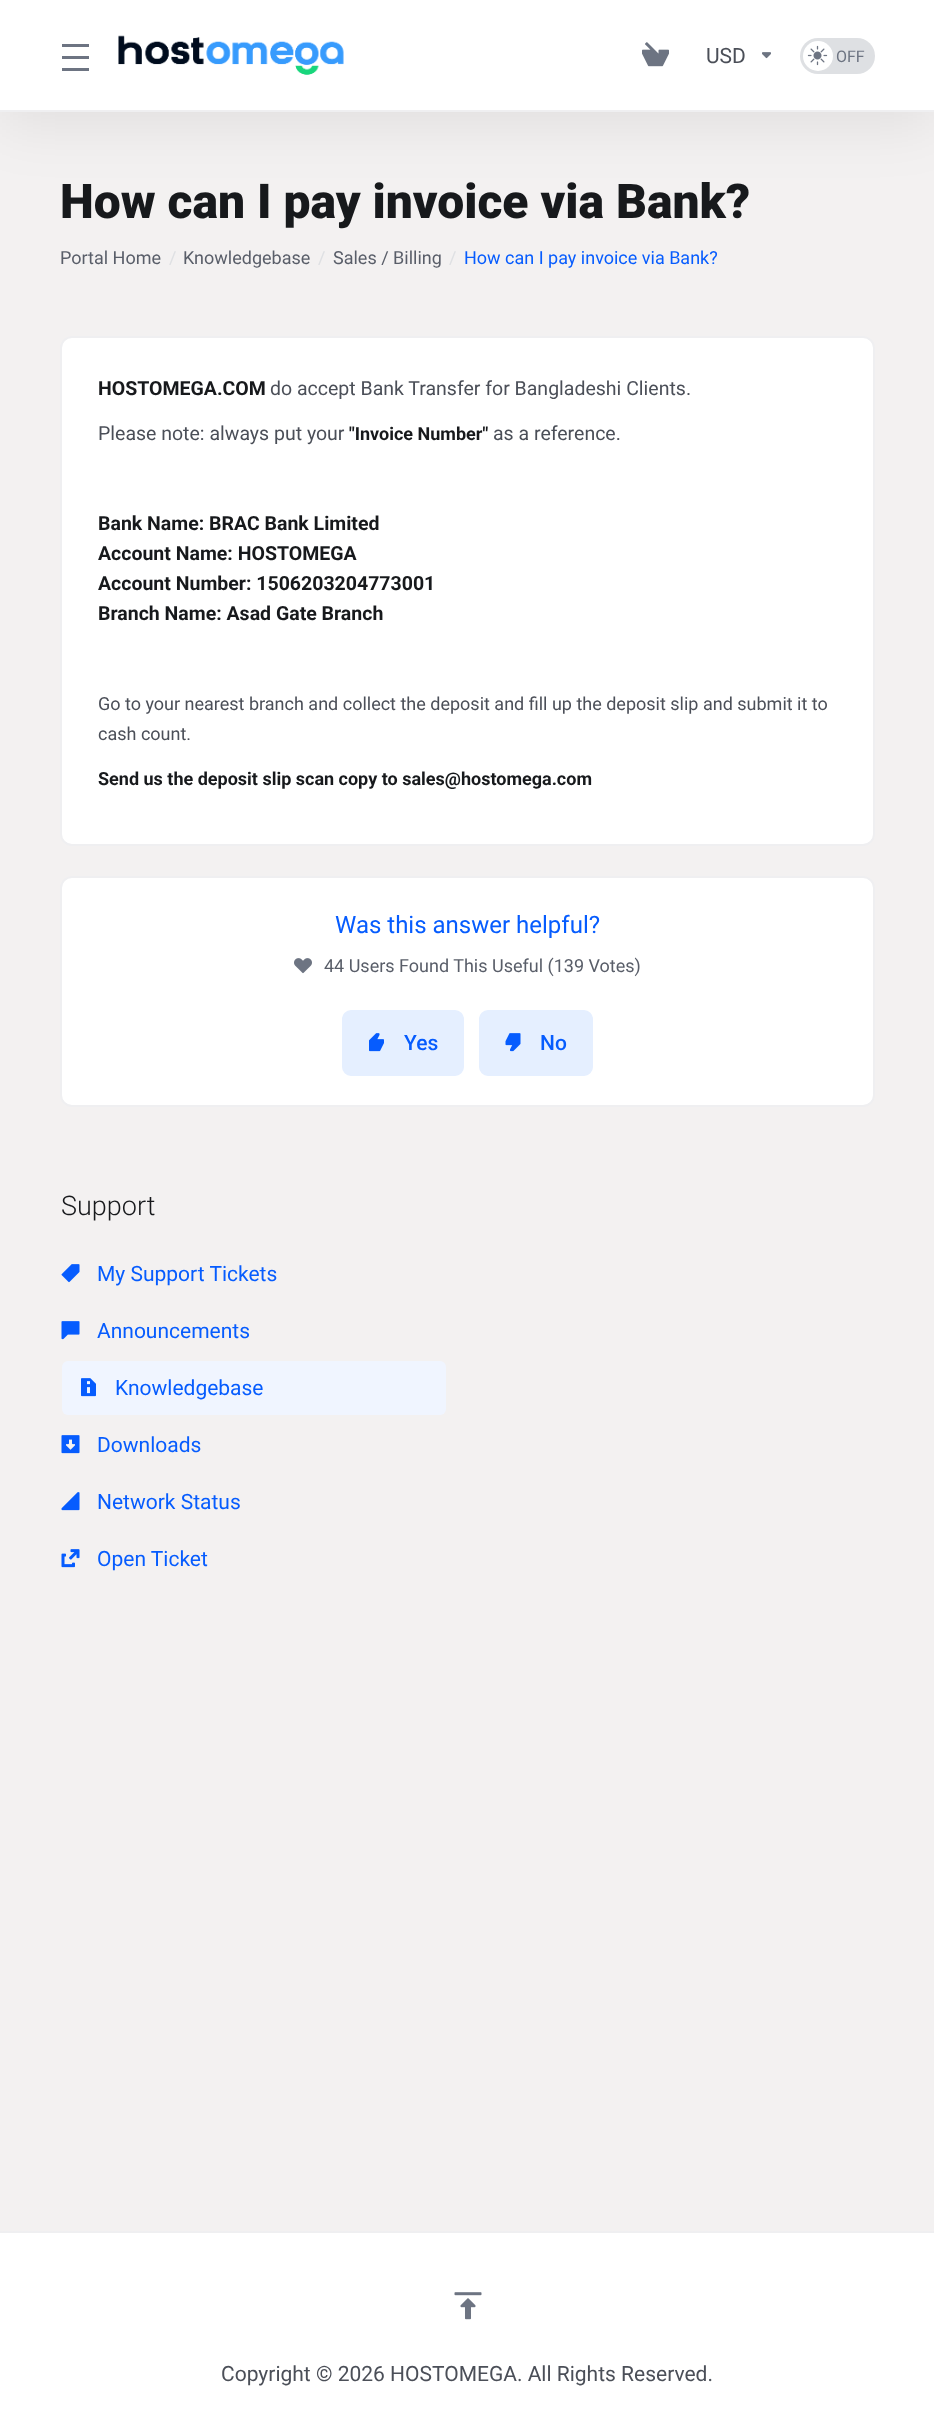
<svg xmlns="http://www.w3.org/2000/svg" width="934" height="2415">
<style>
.a{font:21px Roboto;fill:#4b4f58}
.b{font:16px Roboto;fill:#6d7482}
.c{font:900 48px Roboto;fill:#17191c}
.d{font:18px Roboto;fill:#595e69}
.e{font:18px Roboto;fill:#dee0e3}
.f{font:18px Roboto;fill:#065cfe}
.g{font:bold 19.5px Roboto;fill:#17191c}
.h{font:19.5px Roboto;fill:#4b4f58}
.i{font:bold 18px Roboto;fill:#17191c}
.j{font:18px Roboto;fill:#4b4f58}
.k{font:24px Roboto;fill:#065cfe}
.l{font:500 21px Roboto;fill:#065cfe}
.m{font:300 27px Roboto;fill:#17191c}
.n{font:21px Roboto;fill:#065cfe}
</style>
<rect width="100%" height="100%" fill="#f3f1f1"/>
<path fill="#00000014" filter="blur(30px)" d="M0 12h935v111H0z"/>
<path fill="#fff" d="M0 0h934v110H0z"/>
<path fill="#efeff1" d="M0 110h934v2H0z"/>
<path fill="#6d7482" d="M62 44h27v3H62z"/>
<path fill="#6d7482" d="M62 56h27v3H62z"/>
<path fill="#6d7482" d="M62 68h27v3H62z"/>
<image href="1.png" x="118" y="35" width="226" height="40"/>
<image href="2.png" x="642" y="42" width="27" height="25"/>
<image href="3.png" x="762" y="52" width="9" height="7"/>
<rect fill="#dee0e3" x="800" y="38" width="75" height="36" rx="18"/>
<circle fill="#fff" cx="818" cy="56" r="15"/>
<image href="4.png" x="807" y="45" width="21" height="21"/>
<rect fill="#fff" stroke="#efeff1" stroke-width="2" x="61" y="337" width="813" height="508" rx="11"/>
<rect fill="#fff" stroke="#efeff1" stroke-width="2" x="61" y="877" width="813" height="229" rx="11"/>
<image href="5.png" x="294" y="958" width="18" height="16"/>
<rect fill="#e5efff" stroke="#e5efff" stroke-width="2" x="343" y="1011" width="120" height="64" rx="8"/>
<image href="6.png" x="369" y="1033" width="15" height="19"/>
<rect fill="#e5efff" stroke="#e5efff" stroke-width="2" x="480" y="1011" width="112" height="64" rx="8"/>
<image href="7.png" x="505" y="1033" width="16" height="19"/>
<image href="8.png" x="61" y="1264" width="19" height="19"/>
<image href="9.png" x="61" y="1321" width="19" height="19"/>
<rect fill="#f0f5ff" x="62" y="1361" width="384" height="54" rx="6"/>
<image href="10.png" x="81" y="1378" width="15" height="19"/>
<image href="11.png" x="61" y="1435" width="19" height="19"/>
<image href="12.png" x="61" y="1492" width="19" height="19"/>
<image href="13.png" x="61" y="1549" width="19" height="19"/>
<path fill="#fff" d="M0 2233h934v182H0z"/>
<path fill="#efeff1" d="M0 2231h934v2H0z"/>
<image href="14.png" x="454" y="2292" width="28" height="28"/>
<text class="a" x="706" y="63">USD</text>
<text class="b" x="836" y="62">OFF</text>
<text class="c" x="60" y="218">How can I pay invoice via Bank?</text>
<text class="d" x="60" y="264">Portal Home</text>
<text class="e" x="169" y="264">/</text>
<text class="d" x="183" y="264">Knowledgebase</text>
<text class="e" x="318" y="264">/</text>
<text class="d" x="333" y="264">Sales / Billing</text>
<text class="e" x="449" y="264">/</text>
<text class="f" x="464" y="264">How can I pay invoice via Bank?</text>
<text class="g" x="98" y="395">HOSTOMEGA.COM</text>
<text class="h" x="270" y="395">do accept Bank Transfer for Bangladeshi Clients.</text>
<text class="h" x="98" y="440">Please note: always put your</text>
<text class="i" x="349" y="440">"Invoice Number"</text>
<text class="h" x="493" y="440">as a reference.</text>
<text class="g" x="98" y="530">Bank Name: BRAC Bank Limited</text>
<text class="g" x="98" y="560">Account Name: HOSTOMEGA</text>
<text class="g" x="98" y="590">Account Number: 1506203204773001</text>
<text class="g" x="98" y="620">Branch Name: Asad Gate Branch</text>
<text class="j" x="98" y="710">Go to your nearest branch and collect the deposit and fill up the deposit slip and submit it to</text>
<text class="j" x="98" y="740">cash count.</text>
<text class="i" x="98" y="785">Send us the deposit slip scan copy to sales@hostomega.com</text>
<text class="k" x="335" y="933">Was this answer helpful?</text>
<text class="d" x="324" y="972">44 Users Found This Useful (139 Votes)</text>
<text class="l" x="404" y="1050">Yes</text>
<text class="l" x="540" y="1050">No</text>
<text class="m" x="61" y="1215">Support</text>
<text class="n" x="97" y="1281">My Support Tickets</text>
<text class="n" x="97" y="1338">Announcements</text>
<text class="n" x="115" y="1395">Knowledgebase</text>
<text class="n" x="97" y="1452">Downloads</text>
<text class="n" x="97" y="1509">Network Status</text>
<text class="n" x="97" y="1566">Open Ticket</text>
<text class="a" x="221" y="2381">Copyright © 2026 HOSTOMEGA. All Rights Reserved.</text>
</svg>
